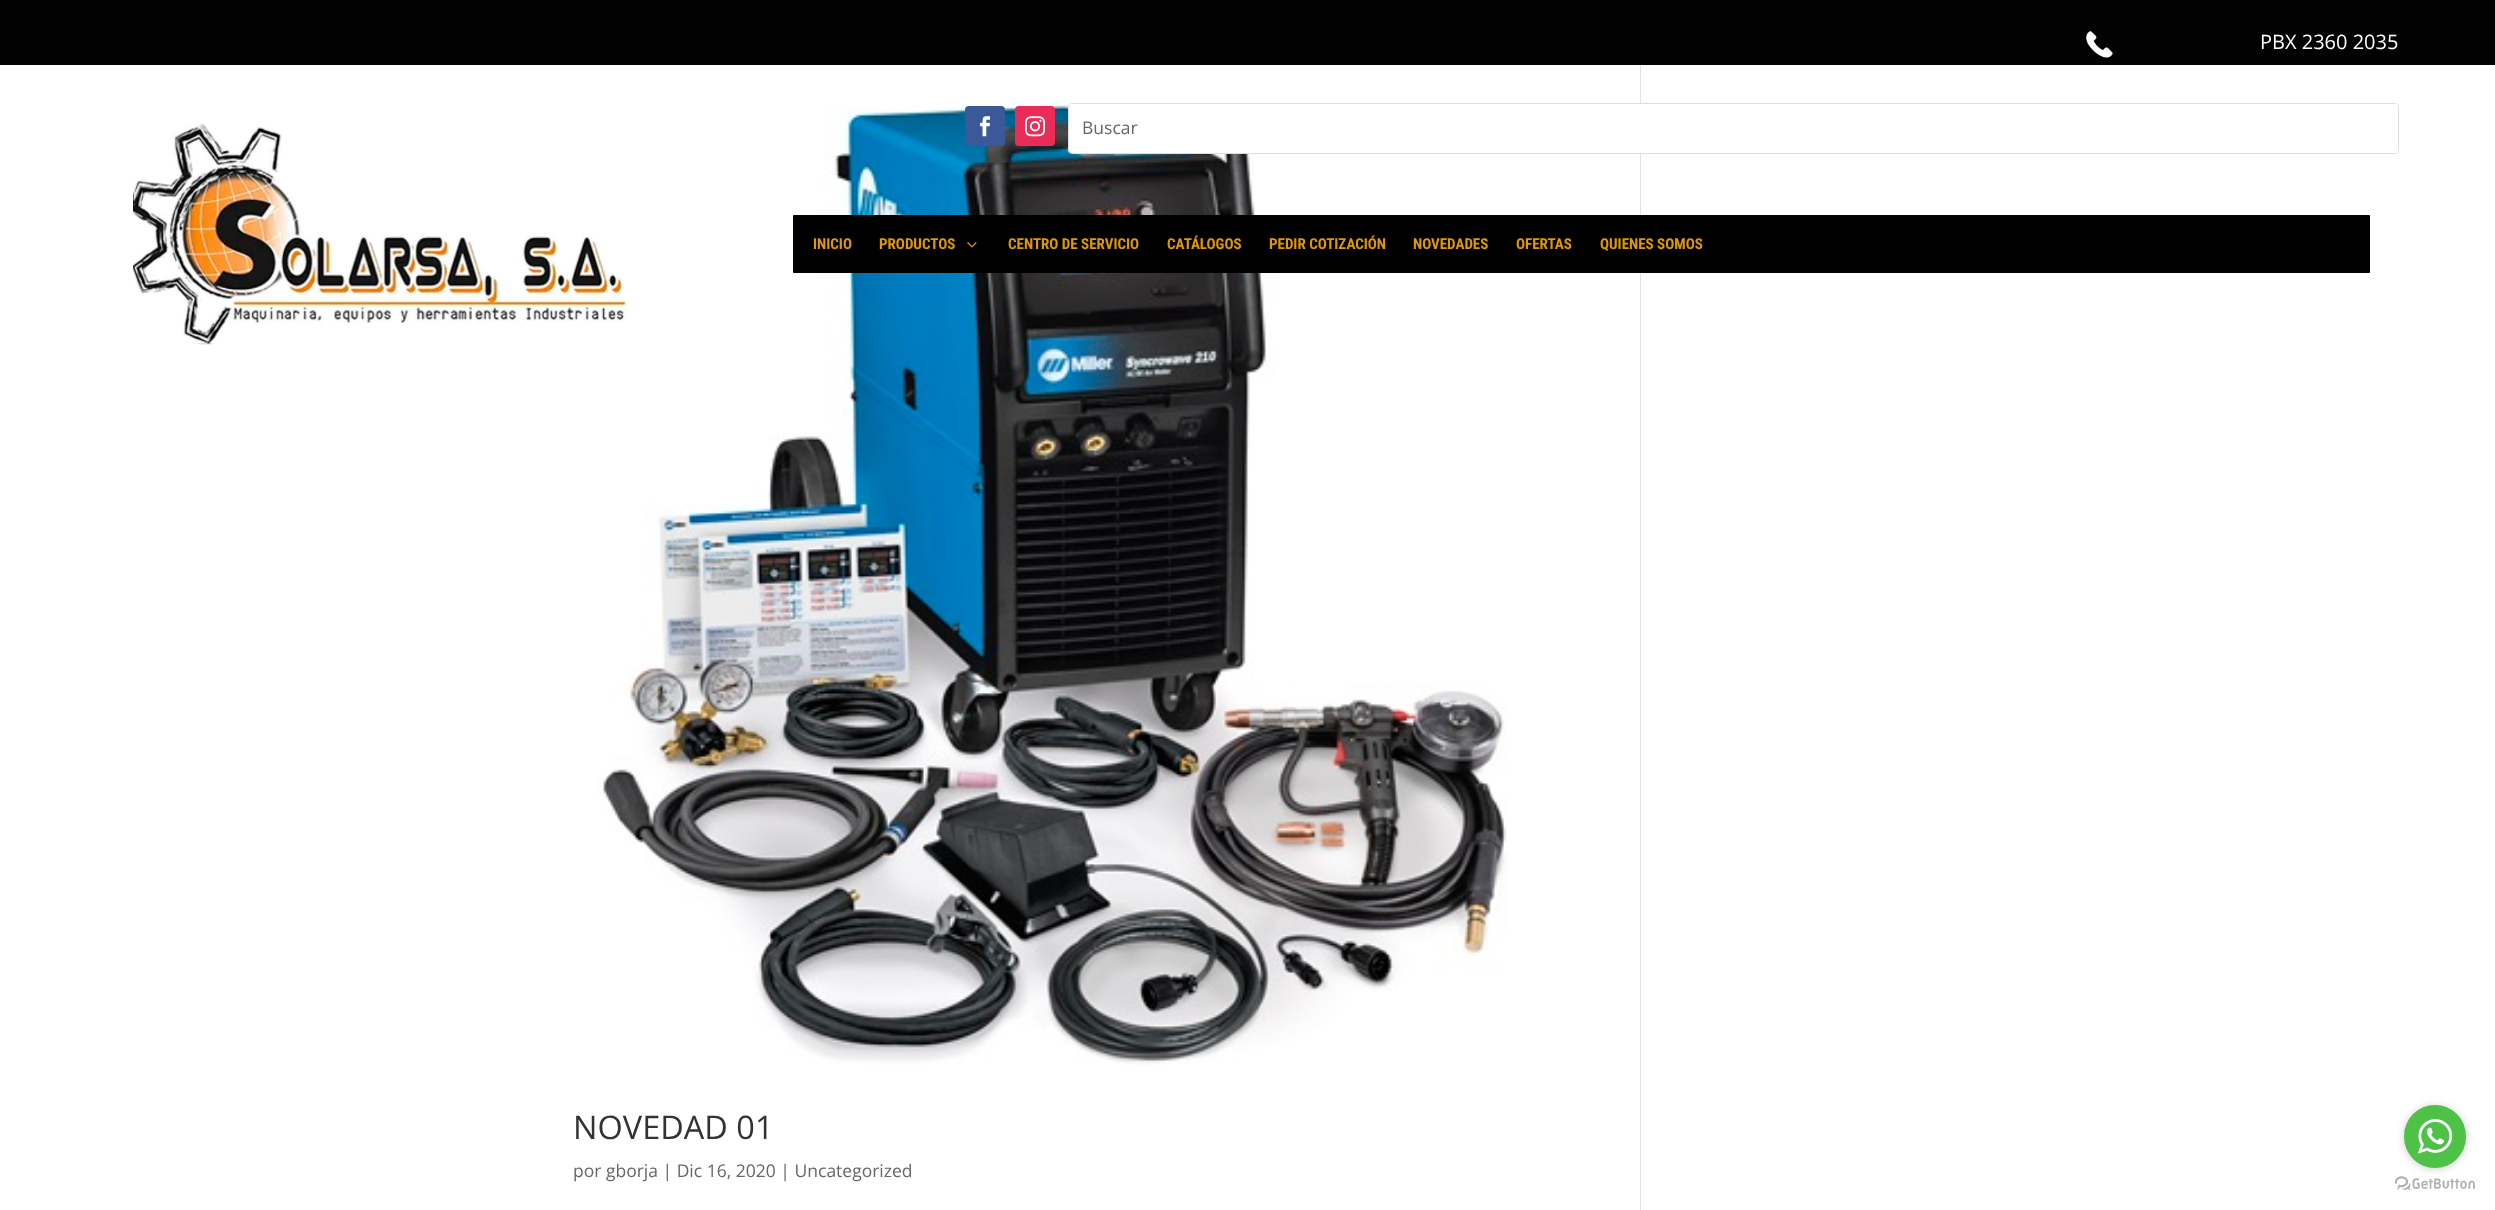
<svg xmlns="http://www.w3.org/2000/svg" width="2495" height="1210">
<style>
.a{font:20px Open Sans;fill:#fff}
.b{font:17.5px Open Sans;fill:#666}
.c{font:bold 15px Roboto Condensed;fill:#e09900}
.d{font:32.5px Open Sans;fill:#333}
</style>
<rect width="100%" height="100%" fill="#fff"/>
<path fill="#020202" d="M0 0h2495v65H0z"/>
<image href="1.png" x="2086" y="31" width="27" height="27"/>
<image href="6.png" x="598" y="100" width="910" height="965"/>
<rect fill="#3b5998" x="965" y="106" width="40" height="40" rx="4"/>
<image href="2.png" x="980" y="116" width="10" height="21"/>
<rect fill="#ea2c59" x="1015" y="106" width="40" height="40" rx="4"/>
<image href="3.png" x="1025" y="116" width="20" height="21"/>
<path fill="#e2e2e2" d="M1640 65h1v1145H1640z"/>
<rect fill="none" stroke="#ddd" x="1068.5" y="103.5" width="1330" height="50" rx="3.5"/>
<rect fill="#fff" x="1069" y="104" width="1329" height="49" rx="2.5"/>
<image href="4.png" x="133" y="123" width="494" height="222"/>
<path fill="#000" stroke="#020202" d="M793.5 215.5h1576v57H793.5z"/>
<image href="5.png" x="967" y="242" width="10" height="6"/>
<image href="8.png" x="2395" y="1176" width="80" height="14"/>
<rect fill="#88888866" filter="blur(4.5px)" x="2404" y="1106" width="62" height="63" rx="31"/>
<rect fill="#4dc247" x="2404" y="1105" width="62" height="63" rx="31"/>
<image href="7.png" x="2417" y="1119" width="36" height="35"/>
<text class="a" x="2260" y="49">PBX 2360 2035</text>
<text class="b" x="1082" y="134">Buscar</text>
<text class="c" x="813" y="249">INICIO</text>
<text class="c" x="879" y="249">PRODUCTOS</text>
<text class="c" x="1008" y="249">CENTRO DE SERVICIO</text>
<text class="c" x="1167" y="249">CATÁLOGOS</text>
<text class="c" x="1269" y="249">PEDIR COTIZACIÓN</text>
<text class="c" x="1413" y="249">NOVEDADES</text>
<text class="c" x="1516" y="249">OFERTAS</text>
<text class="c" x="1600" y="249">QUIENES SOMOS</text>
<text class="d" x="573" y="1139">NOVEDAD 01</text>
<text class="b" x="573" y="1177">por gborja | Dic 16, 2020 | Uncategorized</text>
</svg>
